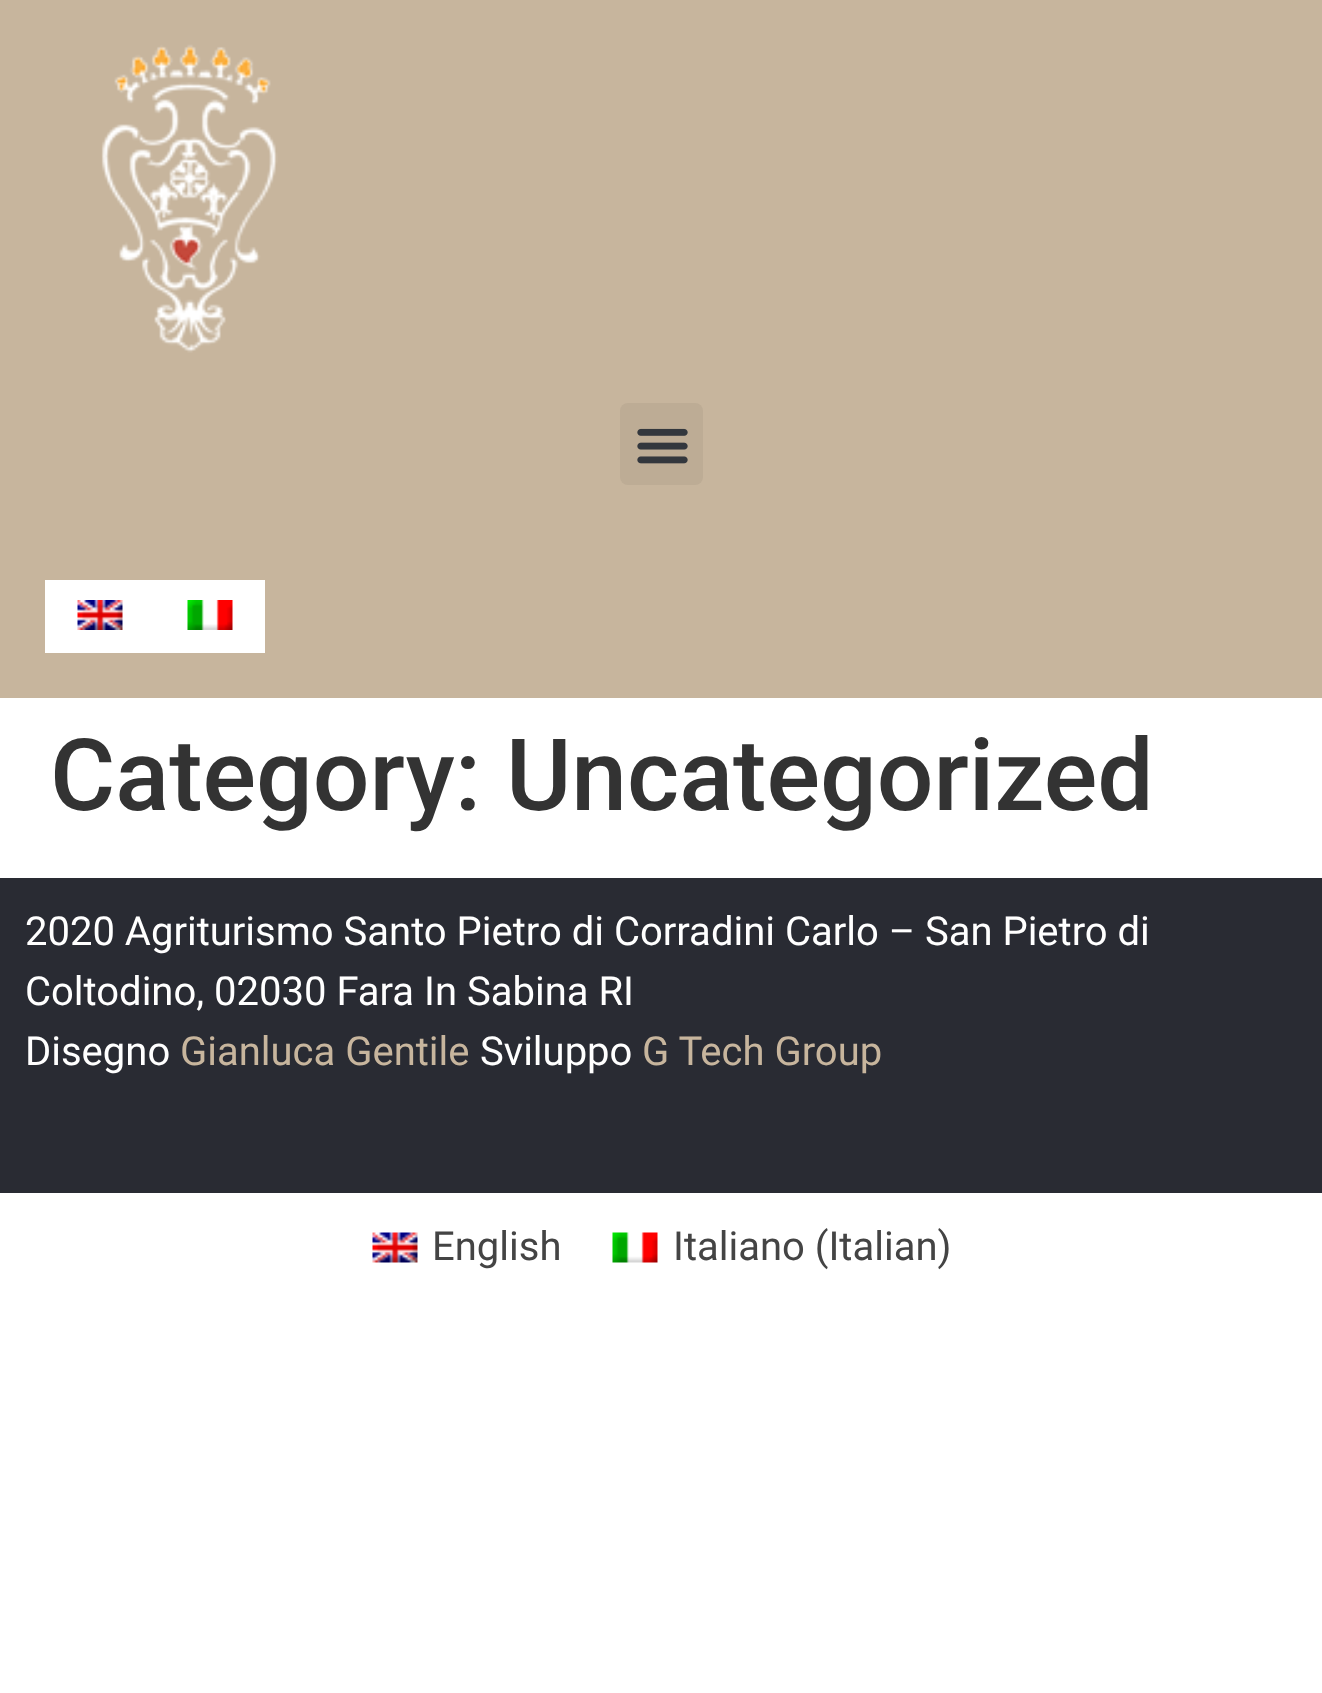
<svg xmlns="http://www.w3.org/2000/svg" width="1322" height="1693">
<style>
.a{font:500 100px Roboto;fill:#333}
.b{font:40px Roboto;fill:#fff}
.c{font:40px Roboto;fill:#c7b59d}
.d{font:40px Roboto;fill:#444}
</style>
<rect width="100%" height="100%" fill="#fff"/>
<path fill="#c7b59d" d="M0 0h1322v698H0z"/>
<image href="1.png" x="101" y="44" width="177" height="309"/>
<rect fill="#bdac95" x="620" y="403" width="83" height="82" rx="8"/>
<image href="2.png" x="637" y="428" width="51" height="36"/>
<path fill="#fff" d="M45 580h220v73H45z"/>
<image href="3.png" x="77" y="600" width="46" height="30"/>
<image href="4.png" x="187" y="600" width="46" height="30"/>
<path fill="#292b33" d="M0 878h1322v315H0z"/>
<image href="5.png" x="372" y="1232" width="46" height="31"/>
<image href="6.png" x="612" y="1232" width="46" height="31"/>
<text class="a" x="50" y="810">Category: Uncategorized</text>
<text class="b" x="25" y="945">2020 Agriturismo Santo Pietro di Corradini Carlo – San Pietro di</text>
<text class="b" x="25" y="1005">Coltodino, 02030 Fara In Sabina RI</text>
<text class="b" x="25" y="1065">Disegno</text>
<text class="c" x="180" y="1065">Gianluca Gentile</text>
<text class="b" x="480" y="1065">Sviluppo</text>
<text class="c" x="642" y="1065">G Tech Group</text>
<text class="d" x="432" y="1260">English</text>
<text class="d" x="673" y="1260">Italiano (Italian)</text>
</svg>
